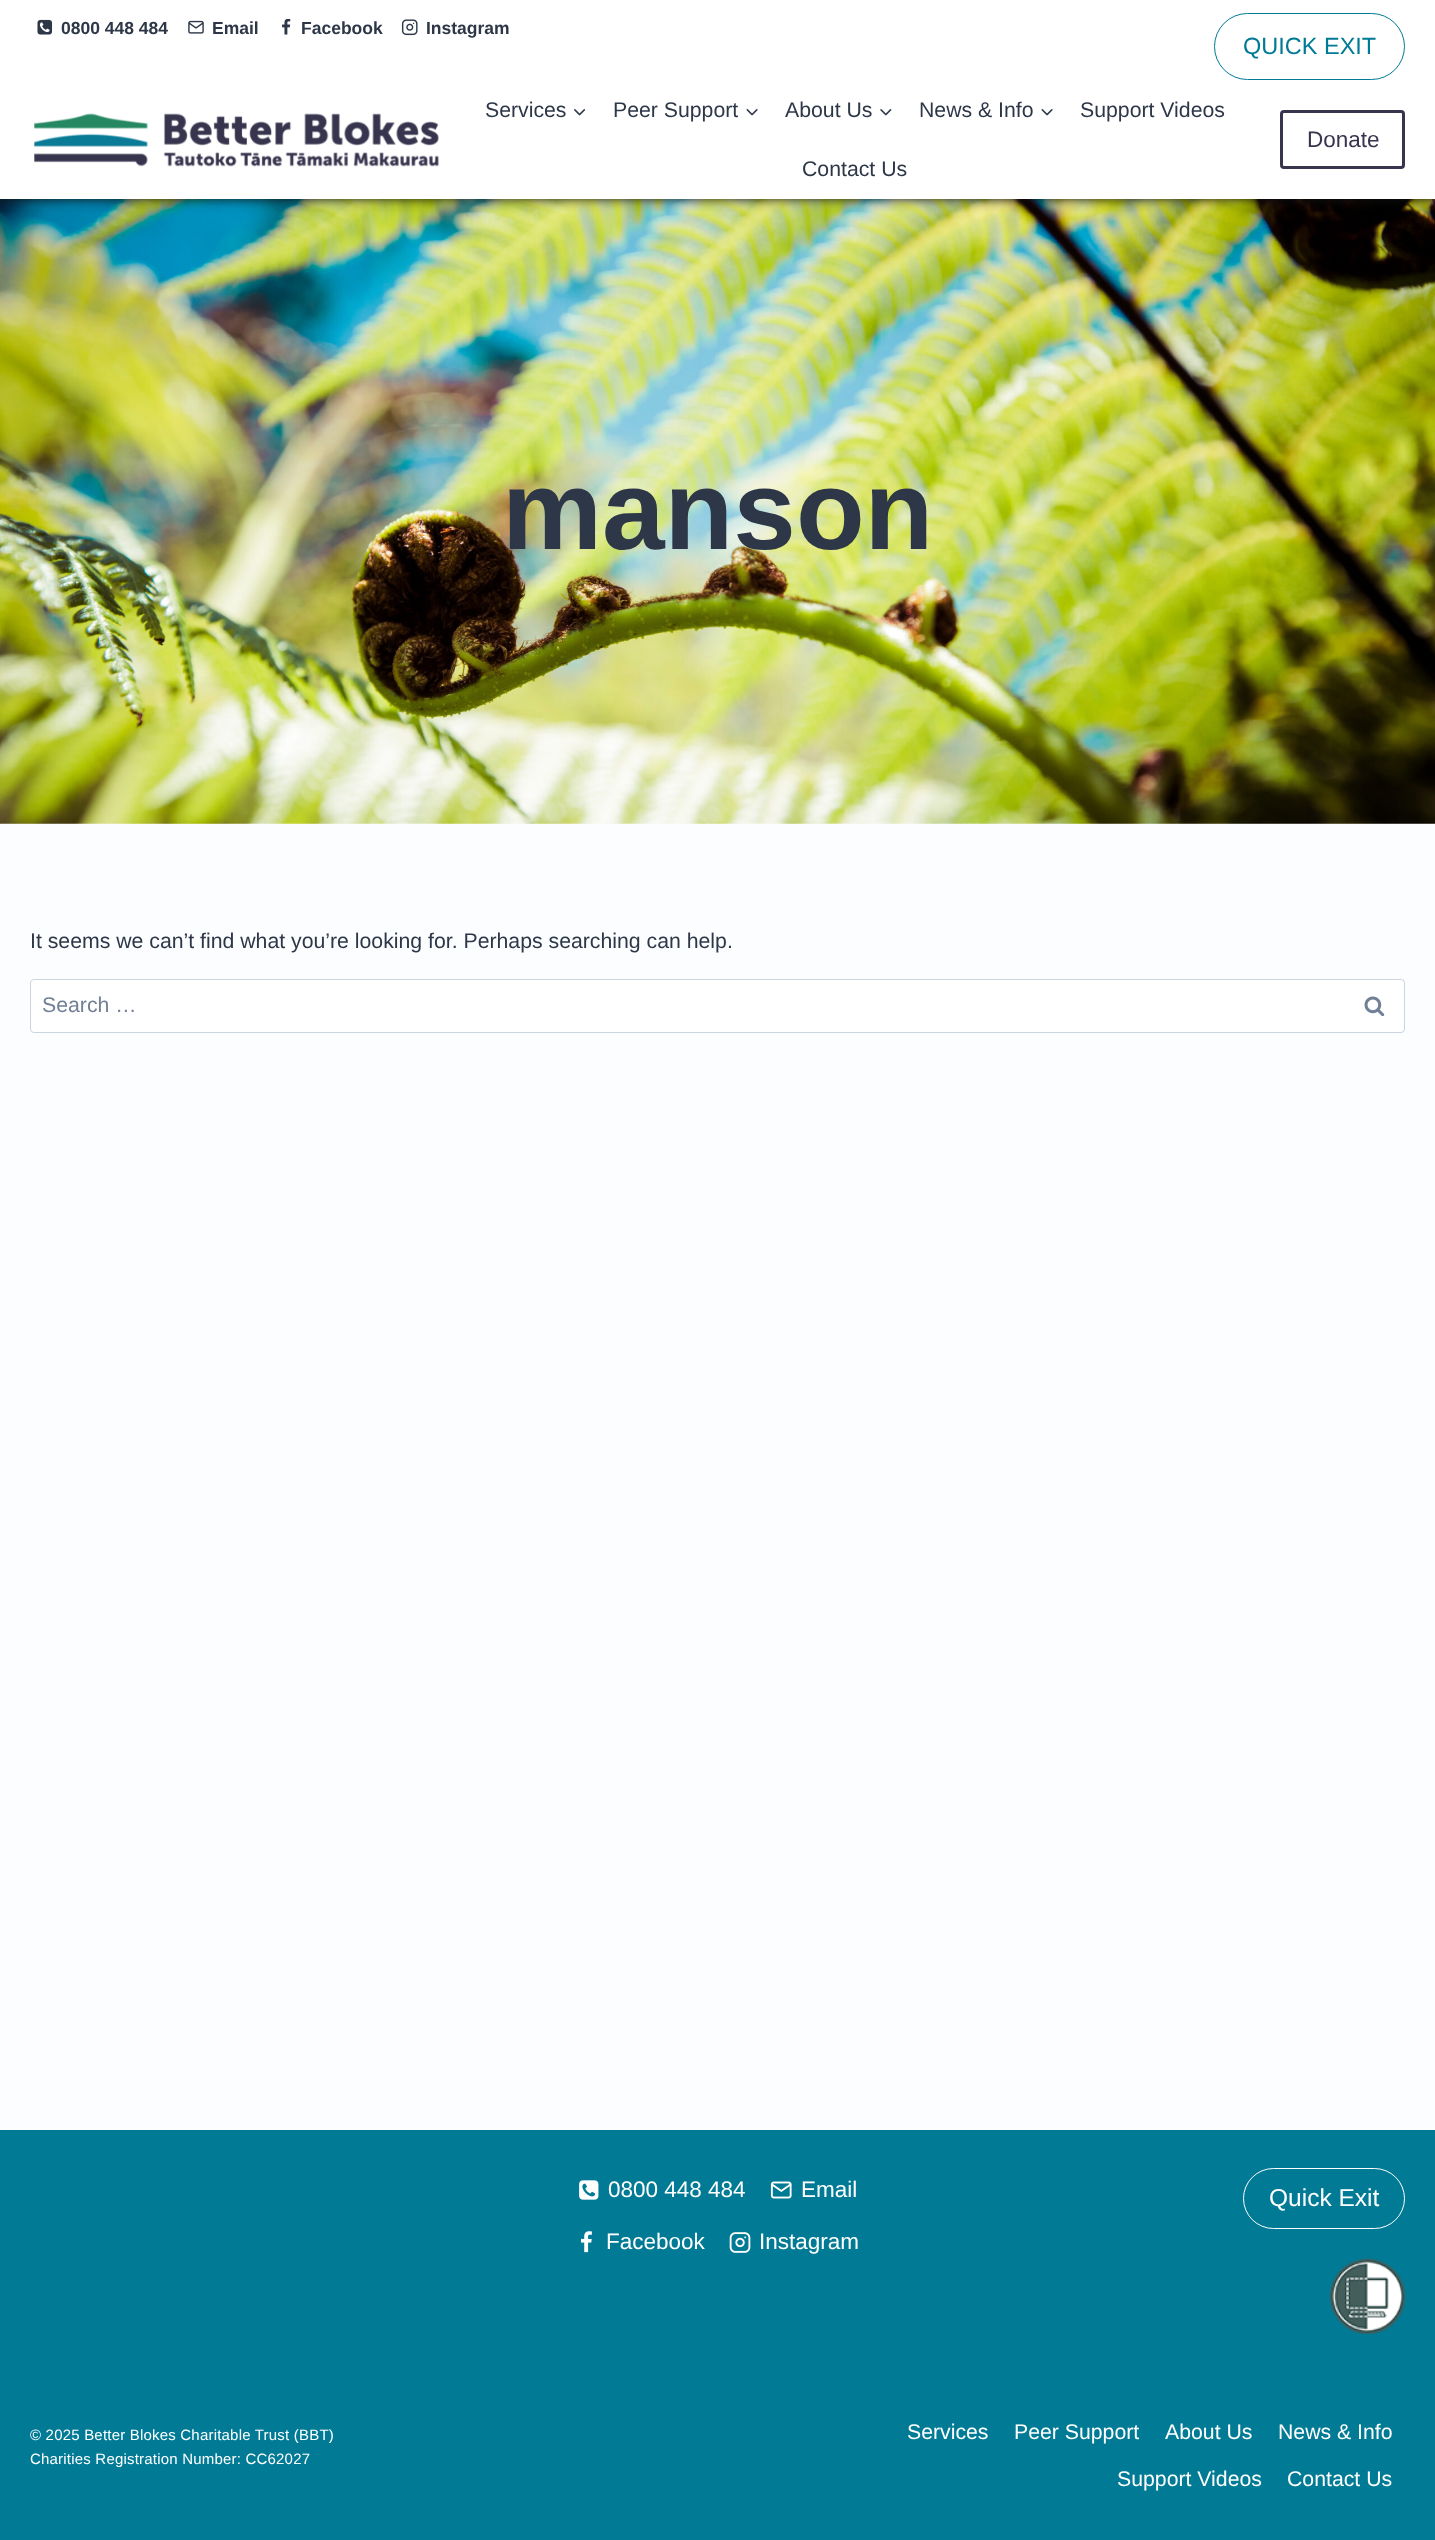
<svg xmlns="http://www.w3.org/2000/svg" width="1435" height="2540">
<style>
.a{font:bold 17.5px Liberation Sans;fill:#2d3748}
.b{font:23.5px Liberation Sans;fill:#017a95}
.c{font:21.25px Liberation Sans;fill:#2d3748}
.d{font:22.5px Liberation Sans;fill:#37344e}
.e{font:bold 112.5px Liberation Sans;fill:#2d3748}
.f{font:21.25px Liberation Sans;fill:#718096}
.g{font:22.5px Liberation Sans;fill:#fff}
.h{font:24.5px Liberation Sans;fill:#fff}
.i{font:15px Liberation Sans;letter-spacing:0.2px;fill:#fff}
.j{font:21.25px Liberation Sans;fill:#fff}
</style>
<rect width="100%" height="100%" fill="#fbfdfe"/>
<image href="9.png" x="0" y="199" width="1435" height="625"/>
<path fill="#111" filter="blur(6px)" d="M-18 -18h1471v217H-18z"/>
<path fill="#fff" d="M0 0h1435v199H0z"/>
<image href="1.png" x="37" y="19" width="16" height="16"/>
<image href="2.png" x="188" y="20" width="16" height="14"/>
<image href="3.png" x="282" y="19" width="9" height="16"/>
<image href="4.png" x="401" y="19" width="17" height="17"/>
<rect fill="none" stroke="#017a95" x="1214.5" y="13.5" width="190" height="66" rx="33"/>
<image href="5.png" x="34" y="113" width="405" height="54"/>
<image href="6.png" x="574" y="109" width="12" height="7"/>
<image href="7.png" x="746" y="109" width="12" height="7"/>
<image href="8.png" x="880" y="109" width="12" height="7"/>
<image href="7.png" x="1041" y="109" width="12" height="7"/>
<rect fill="none" stroke="#37344e" stroke-width="3" x="1281.5" y="111.5" width="122" height="56" rx="2.5"/>
<rect fill="#fff" stroke="#cbd5e0" x="30.5" y="979.5" width="1374" height="53" rx="3.5"/>
<image href="10.png" x="1364" y="996" width="21" height="20"/>
<path fill="#017a95" d="M0 2130h1435v410H0z"/>
<image href="11.png" x="579" y="2180" width="20" height="20"/>
<image href="12.png" x="770" y="2181" width="22" height="18"/>
<image href="13.png" x="581" y="2231" width="11" height="22"/>
<image href="14.png" x="729" y="2232" width="22" height="21"/>
<rect fill="none" stroke="#fefefe" x="1243.5" y="2168.5" width="161" height="60" rx="30"/>
<image href="15.png" x="1330" y="2258" width="75" height="76"/>
<text class="a" x="61" y="34">0800 448 484</text>
<text class="a" x="212" y="34">Email</text>
<text class="a" x="301" y="34">Facebook</text>
<text class="a" x="426" y="34">Instagram</text>
<text class="b" x="1243" y="54">QUICK EXIT</text>
<text class="c" x="485" y="117">Services</text>
<text class="c" x="613" y="117">Peer Support</text>
<text class="c" x="785" y="117">About Us</text>
<text class="c" x="919" y="117">News &amp; Info</text>
<text class="c" x="1080" y="117">Support Videos</text>
<text class="c" x="802" y="176">Contact Us</text>
<text class="d" x="1307" y="147">Donate</text>
<text class="e" x="502" y="549">manson</text>
<text class="c" x="30" y="948">It seems we can’t find what you’re looking for. Perhaps searching can help.</text>
<text class="f" x="42" y="1012">Search …</text>
<text class="g" x="608" y="2197">0800 448 484</text>
<text class="g" x="801" y="2197">Email</text>
<text class="g" x="606" y="2249">Facebook</text>
<text class="g" x="759" y="2249">Instagram</text>
<text class="h" x="1269" y="2206">Quick Exit</text>
<text class="i" x="30" y="2440">© 2025 Better Blokes Charitable Trust (BBT)</text>
<text class="i" x="30" y="2464">Charities Registration Number: CC62027</text>
<text class="j" x="907" y="2439">Services</text>
<text class="j" x="1014" y="2439">Peer Support</text>
<text class="j" x="1165" y="2439">About Us</text>
<text class="j" x="1278" y="2439">News &amp; Info</text>
<text class="j" x="1117" y="2486">Support Videos</text>
<text class="j" x="1287" y="2486">Contact Us</text>
</svg>
